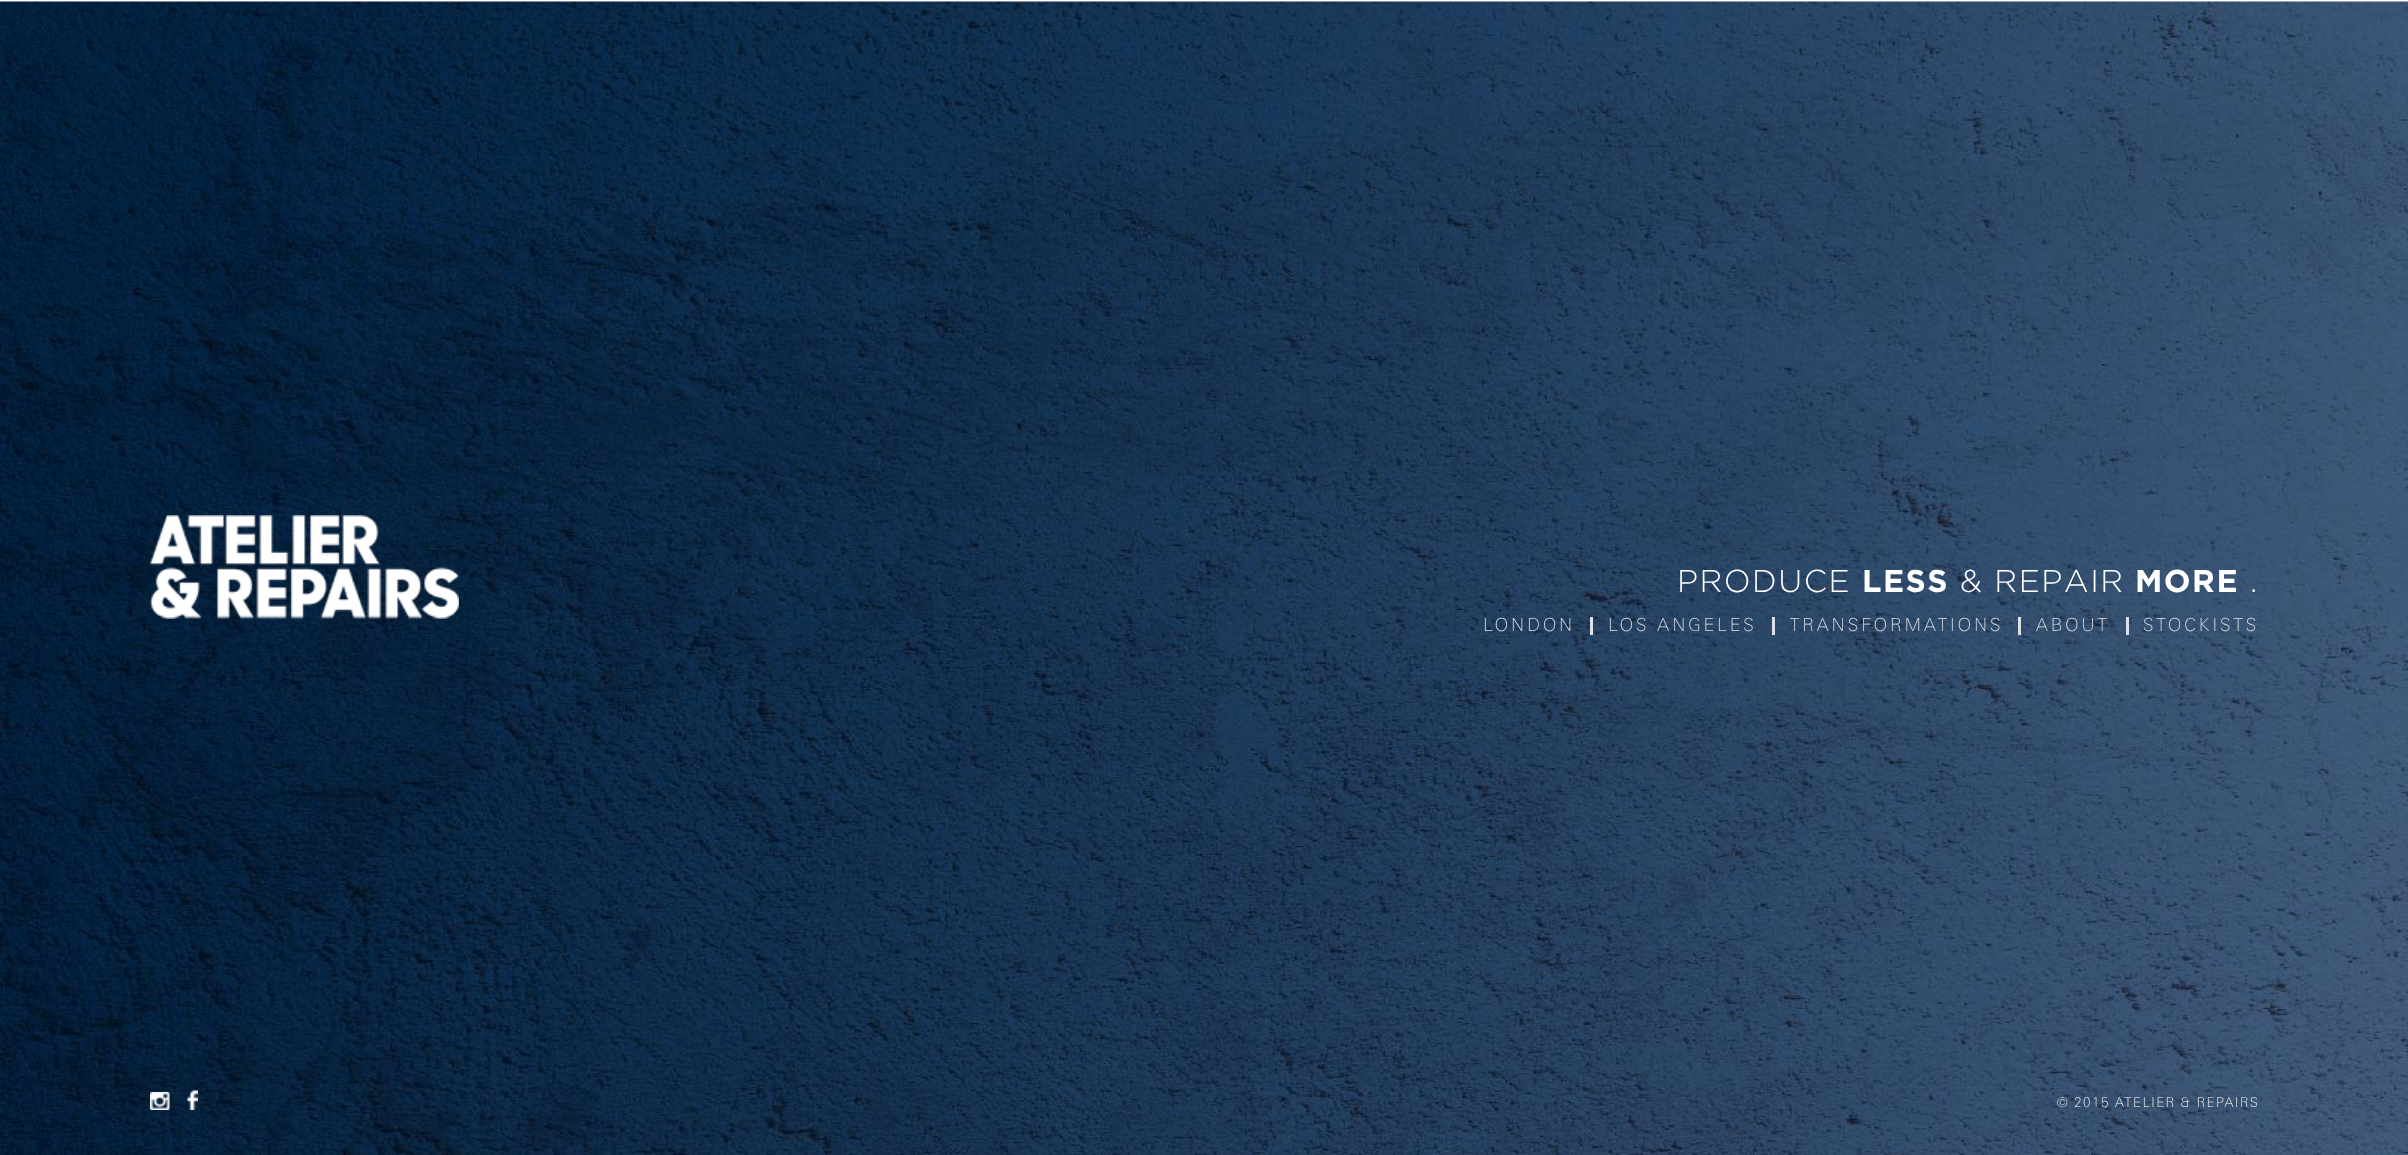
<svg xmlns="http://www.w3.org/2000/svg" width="2408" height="1155">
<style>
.a{font:300 31.5px Gotham;letter-spacing:1.5px;fill:#fff}
.b{font:bold 31.5px Gotham;letter-spacing:1.5px;fill:#fff}
.c{font:100 18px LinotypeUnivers;letter-spacing:3px;fill:#dfe0e6}
.d{font:100 13.5px LinotypeUnivers;letter-spacing:1.5px;fill:#fff}
</style>
<rect width="100%" height="100%" fill="#fff"/>
<image href="1.png" x="0" y="1" width="2408" height="1154"/>
<image href="2.png" x="150" y="515" width="309" height="104"/>
<path fill="#dfe0e6" d="M1590 617h3v18H1590z"/>
<path fill="#dfe0e6" d="M1772 617h3v18H1772z"/>
<path fill="#dfe0e6" d="M2018 617h3v18H2018z"/>
<path fill="#dfe0e6" d="M2126 617h3v18H2126z"/>
<image href="3.png" x="150" y="1092" width="20" height="18"/>
<image href="4.png" x="187" y="1090" width="11" height="20"/>
<text class="a" x="1677" y="592">PRODUCE</text>
<text class="b" x="1862" y="592">LESS</text>
<text class="a" x="1960" y="592">&amp; REPAIR</text>
<text class="b" x="2135" y="592">MORE</text>
<text class="a" x="2250" y="592">.</text>
<text class="c" x="1483" y="631">LONDON</text>
<text class="c" x="1608" y="631">LOS ANGELES</text>
<text class="c" x="1790" y="631">TRANSFORMATIONS</text>
<text class="c" x="2036" y="631">ABOUT</text>
<text class="c" x="2143" y="631">STOCKISTS</text>
<text class="d" x="2057" y="1107">© 2015 ATELIER &amp; REPAIRS</text>
</svg>
